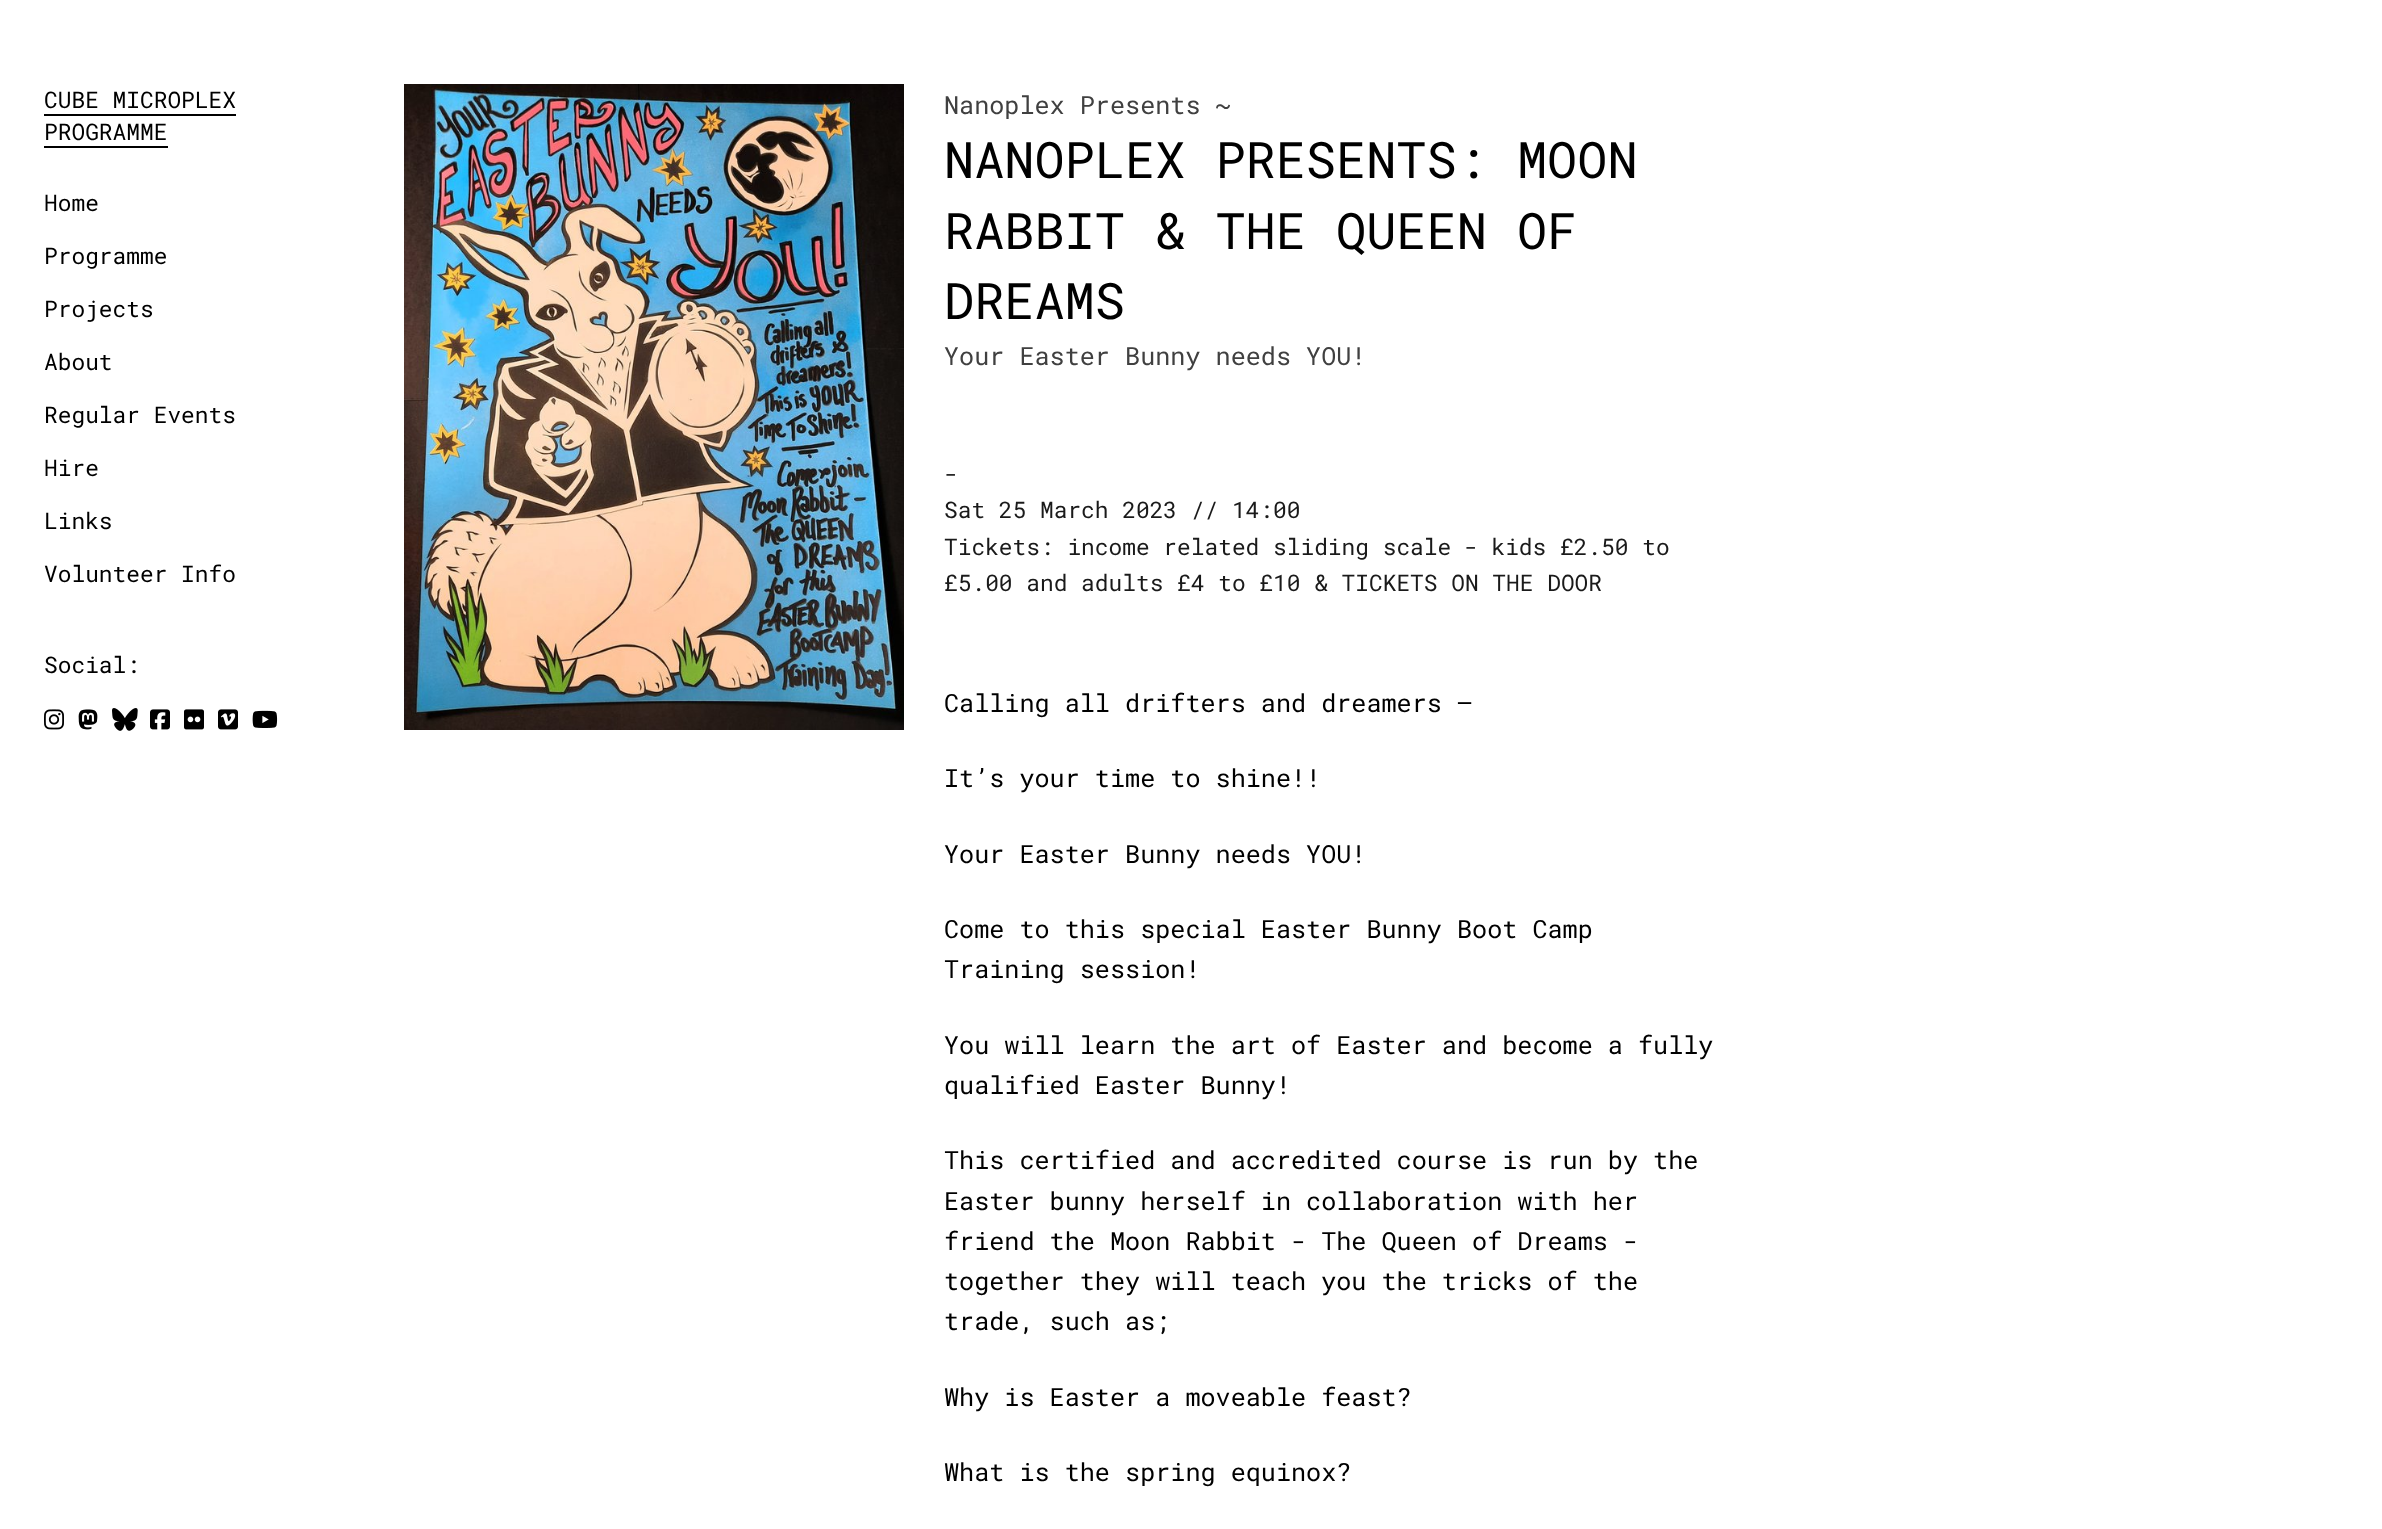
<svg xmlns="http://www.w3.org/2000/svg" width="2382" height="1529">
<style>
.a{font:22.85px Roboto Mono;fill:#000}
.b{font:25.15px Roboto Mono;fill:#404040}
.c{font:50.25px Roboto Mono;fill:#000}
.d{font:22.85px Roboto Mono;fill:#1a1a1a}
.e{font:25.15px Roboto Mono;fill:#000}
</style>
<rect width="100%" height="100%" fill="#fff"/>
<path fill="#000" d="M44 114h192v2H44z"/>
<path fill="#000" d="M44 146h124v2H44z"/>
<image href="1.png" x="44" y="709" width="20" height="21"/>
<image href="2.png" x="78" y="709" width="20" height="21"/>
<image href="3.png" x="112" y="708" width="26" height="23"/>
<image href="4.png" x="150" y="709" width="20" height="21"/>
<image href="5.png" x="184" y="709" width="20" height="21"/>
<image href="6.png" x="218" y="709" width="20" height="21"/>
<image href="7.png" x="252" y="710" width="26" height="18"/>
<image href="8.png" x="404" y="84" width="500" height="646"/>
<text class="a" x="44" y="108">CUBE MICROPLEX</text>
<text class="a" x="44" y="140">PROGRAMME</text>
<text class="a" x="44" y="211">Home</text>
<text class="a" x="44" y="264">Programme</text>
<text class="a" x="44" y="317">Projects</text>
<text class="a" x="44" y="370">About</text>
<text class="a" x="44" y="423">Regular Events</text>
<text class="a" x="44" y="476">Hire</text>
<text class="a" x="44" y="529">Links</text>
<text class="a" x="44" y="582">Volunteer Info</text>
<text class="a" x="44" y="673">Social:</text>
<text class="b" x="944" y="114">Nanoplex Presents ~</text>
<text class="c" x="944" y="178">NANOPLEX PRESENTS: MOON</text>
<text class="c" x="944" y="249">RABBIT &amp; THE QUEEN OF</text>
<text class="c" x="944" y="319">DREAMS</text>
<text class="b" x="944" y="365">Your Easter Bunny needs YOU!</text>
<text class="d" x="944" y="482">-</text>
<text class="d" x="944" y="518">Sat 25 March 2023 // 14:00</text>
<text class="d" x="944" y="555">Tickets: income related sliding scale</text>
<text class="d" x="1464" y="555">- kids £2.50 to</text>
<text class="d" x="944" y="591">£5.00 and adults £4 to £10 &amp; TICKETS ON THE DOOR</text>
<text class="e" x="944" y="712">Calling all drifters and dreamers –</text>
<text class="e" x="944" y="787">It’s your time to shine!!</text>
<text class="e" x="944" y="863">Your Easter Bunny needs YOU!</text>
<text class="e" x="944" y="938">Come to this special Easter Bunny Boot Camp</text>
<text class="e" x="944" y="978">Training session!</text>
<text class="e" x="944" y="1054">You will learn the art of Easter and become a fully</text>
<text class="e" x="944" y="1094">qualified Easter Bunny!</text>
<text class="e" x="944" y="1169">This certified and accredited course is run by the</text>
<text class="e" x="944" y="1210">Easter bunny herself in collaboration with her</text>
<text class="e" x="944" y="1250">friend the Moon Rabbit - The Queen of Dreams -</text>
<text class="e" x="944" y="1290">together they will teach you the tricks of the</text>
<text class="e" x="944" y="1330">trade, such as;</text>
<text class="e" x="944" y="1406">Why is Easter a moveable feast?</text>
<text class="e" x="944" y="1481">What is the spring equinox?</text>
</svg>
